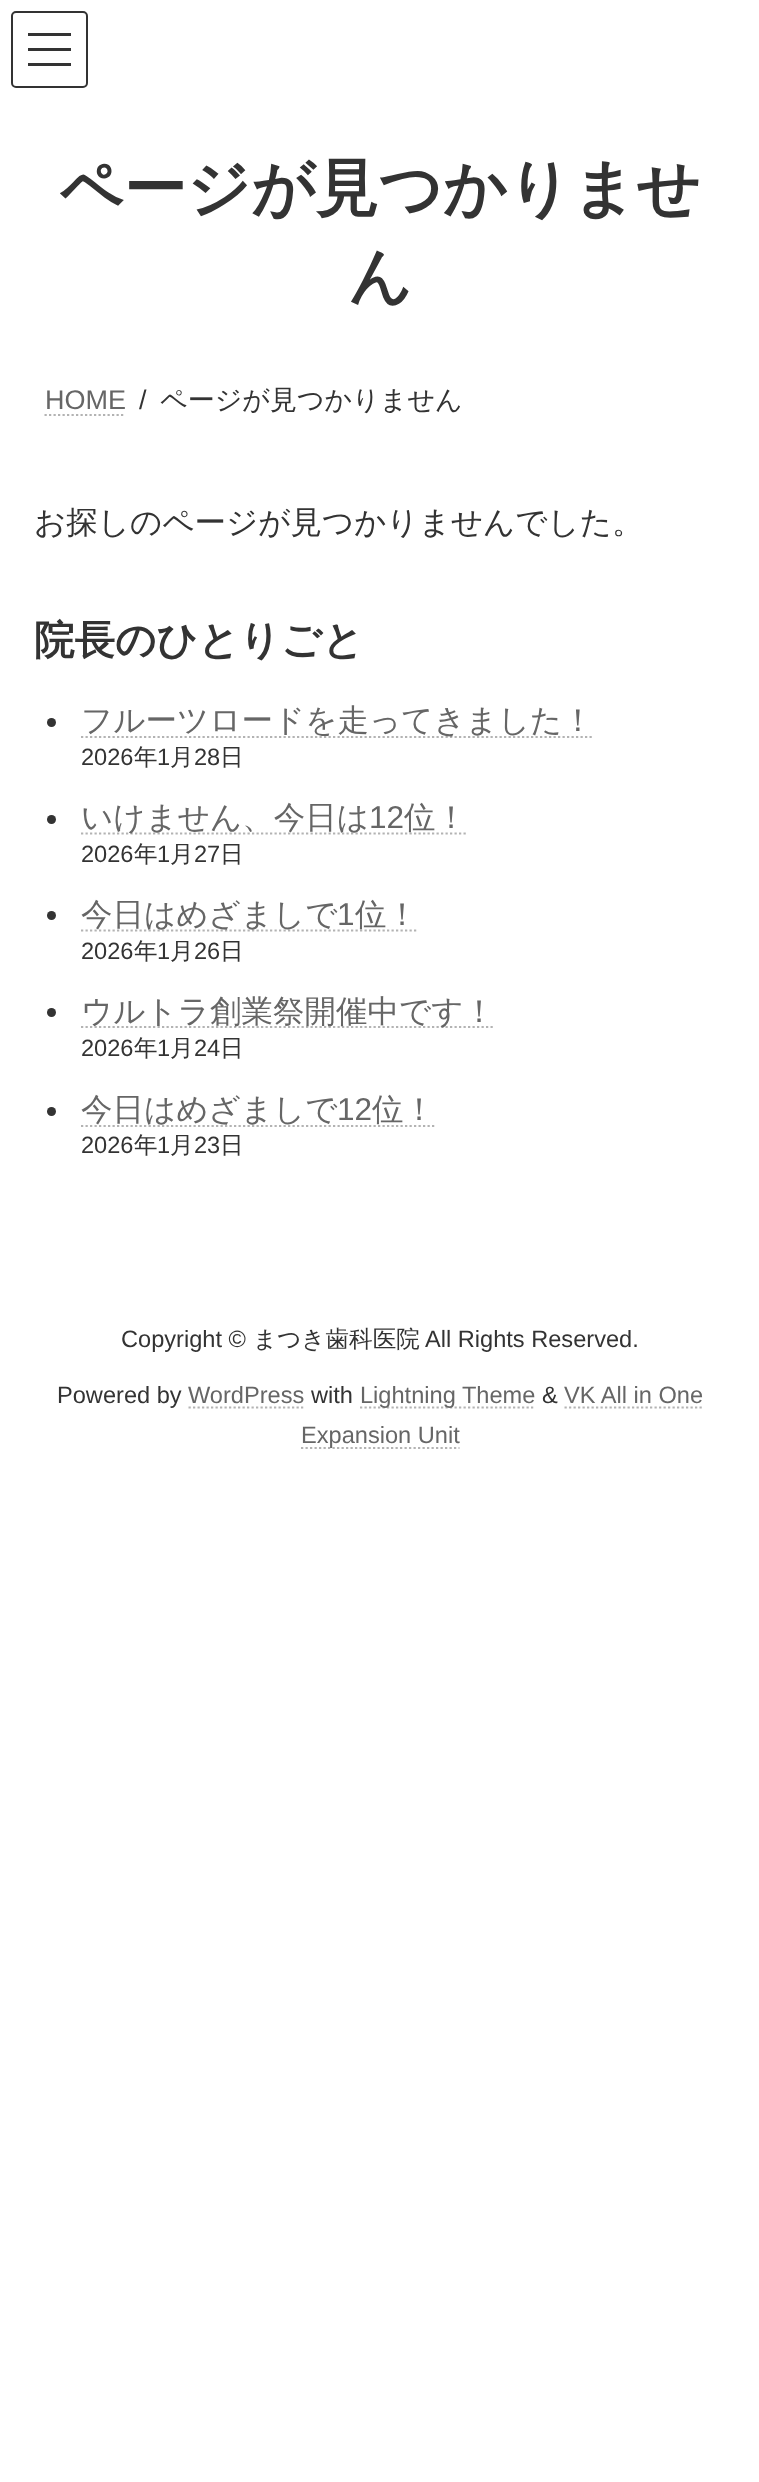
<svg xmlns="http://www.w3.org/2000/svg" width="759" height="2482">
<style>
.a{font:bold 63px WenQuanYi Zen Hei;fill:#333}
.b{font:27px Liberation Sans;fill:#666}
.c{font:27px Liberation Sans;fill:#333}
.d{font:500 27px WenQuanYi Zen Hei;fill:#333}
.e{font:500 31.5px WenQuanYi Zen Hei;fill:#333}
.f{font:bold 40.5px WenQuanYi Zen Hei;fill:#333}
.g{font:500 31.5px WenQuanYi Zen Hei;fill:#666}
.h{font:23.6px Liberation Sans;fill:#333}
.i{font:500 23.6px WenQuanYi Zen Hei;fill:#333}
.j{font:31.5px Liberation Sans;fill:#666}
.k{font:23.6px Liberation Sans;fill:#666}
</style>
<rect width="100%" height="100%" fill="#fff"/>
<path fill="#333" d="M28 33h43v3H28z"/>
<path fill="#333" d="M28 48h43v3H28z"/>
<path fill="#333" d="M28 63h43v3H28z"/>
<rect fill="none" stroke="#333" stroke-width="2" x="12" y="12" width="75" height="75" rx="4"/>
<path fill="none" stroke="#b3b3b3" stroke-width="2.2" stroke-dasharray="2.25 2.25" d="M44.5 415h81"/>
<circle fill="#333" cx="51.5" cy="722.5" r="4.5"/>
<path fill="none" stroke="#b3b3b3" stroke-width="2.2" stroke-dasharray="2.25 2.25" d="M81 737h513"/>
<circle fill="#333" cx="51.5" cy="819.5" r="4.5"/>
<path fill="none" stroke="#b3b3b3" stroke-width="2.2" stroke-dasharray="2.25 2.25" d="M81 833.5h386"/>
<circle fill="#333" cx="51.5" cy="915.5" r="4.5"/>
<path fill="none" stroke="#b3b3b3" stroke-width="2.2" stroke-dasharray="2.25 2.25" d="M81 930.5h337"/>
<circle fill="#333" cx="51.5" cy="1012.5" r="4.5"/>
<path fill="none" stroke="#b3b3b3" stroke-width="2.2" stroke-dasharray="2.25 2.25" d="M81 1027h414"/>
<circle fill="#333" cx="51.5" cy="1111.5" r="4.5"/>
<path fill="none" stroke="#b3b3b3" stroke-width="2.2" stroke-dasharray="2.25 2.25" d="M81 1126h354.5"/>
<path fill="none" stroke="#b3b3b3" stroke-width="2.2" stroke-dasharray="2.25 2.25" d="M188.5 1407.5h116"/>
<path fill="none" stroke="#b3b3b3" stroke-width="2.2" stroke-dasharray="2.25 2.25" d="M360 1407.5h175.5"/>
<path fill="none" stroke="#b3b3b3" stroke-width="2.2" stroke-dasharray="2.25 2.25" d="M564.5 1407.5h139"/>
<path fill="none" stroke="#b3b3b3" stroke-width="2.2" stroke-dasharray="2.25 2.25" d="M301 1448h158.5"/>
<text class="a" x="59" y="210">ページが見つかりませ</text>
<text class="a" x="348" y="298">ん</text>
<text class="b" x="45" y="409">HOME</text>
<text class="c" x="139" y="409">/</text>
<text class="d" x="160" y="409">ページが見つかりません</text>
<text class="e" x="34" y="533">お探しのページが見つかりませんでした。</text>
<text class="f" x="34" y="654">院長のひとりごと</text>
<text class="g" x="81" y="731">フルーツロードを走ってきました！</text>
<text class="h" x="81" y="765">2026</text>
<text class="i" x="134" y="765">年</text>
<text class="h" x="157" y="765">1</text>
<text class="i" x="170" y="765">月</text>
<text class="h" x="194" y="765">28</text>
<text class="i" x="220" y="765">日</text>
<text class="g" x="81" y="828">いけません、今日は</text>
<text class="j" x="369" y="828">12</text>
<text class="g" x="404" y="828">位！</text>
<text class="h" x="81" y="862">2026</text>
<text class="i" x="134" y="862">年</text>
<text class="h" x="157" y="862">1</text>
<text class="i" x="170" y="862">月</text>
<text class="h" x="194" y="862">27</text>
<text class="i" x="220" y="862">日</text>
<text class="g" x="81" y="925">今日はめざましで</text>
<text class="j" x="337" y="925">1</text>
<text class="g" x="355" y="925">位！</text>
<text class="h" x="81" y="959">2026</text>
<text class="i" x="134" y="959">年</text>
<text class="h" x="157" y="959">1</text>
<text class="i" x="170" y="959">月</text>
<text class="h" x="194" y="959">26</text>
<text class="i" x="220" y="959">日</text>
<text class="g" x="81" y="1022">ウルトラ創業祭開催中です！</text>
<text class="h" x="81" y="1056">2026</text>
<text class="i" x="134" y="1056">年</text>
<text class="h" x="157" y="1056">1</text>
<text class="i" x="170" y="1056">月</text>
<text class="h" x="194" y="1056">24</text>
<text class="i" x="220" y="1056">日</text>
<text class="g" x="81" y="1120">今日はめざましで</text>
<text class="j" x="337" y="1120">12</text>
<text class="g" x="372" y="1120">位！</text>
<text class="h" x="81" y="1153">2026</text>
<text class="i" x="134" y="1153">年</text>
<text class="h" x="157" y="1153">1</text>
<text class="i" x="170" y="1153">月</text>
<text class="h" x="194" y="1153">23</text>
<text class="i" x="220" y="1153">日</text>
<text class="h" x="121" y="1347">Copyright ©</text>
<text class="i" x="253" y="1347">まつき歯科医院</text>
<text class="h" x="425" y="1347">All Rights Reserved.</text>
<text class="h" x="57" y="1403">Powered by</text>
<text class="k" x="188" y="1403">WordPress</text>
<text class="h" x="311" y="1403">with</text>
<text class="k" x="360" y="1403">Lightning Theme</text>
<text class="h" x="542" y="1403">&amp;</text>
<text class="k" x="564" y="1403">VK All in One</text>
<text class="k" x="301" y="1443">Expansion Unit</text>
</svg>
